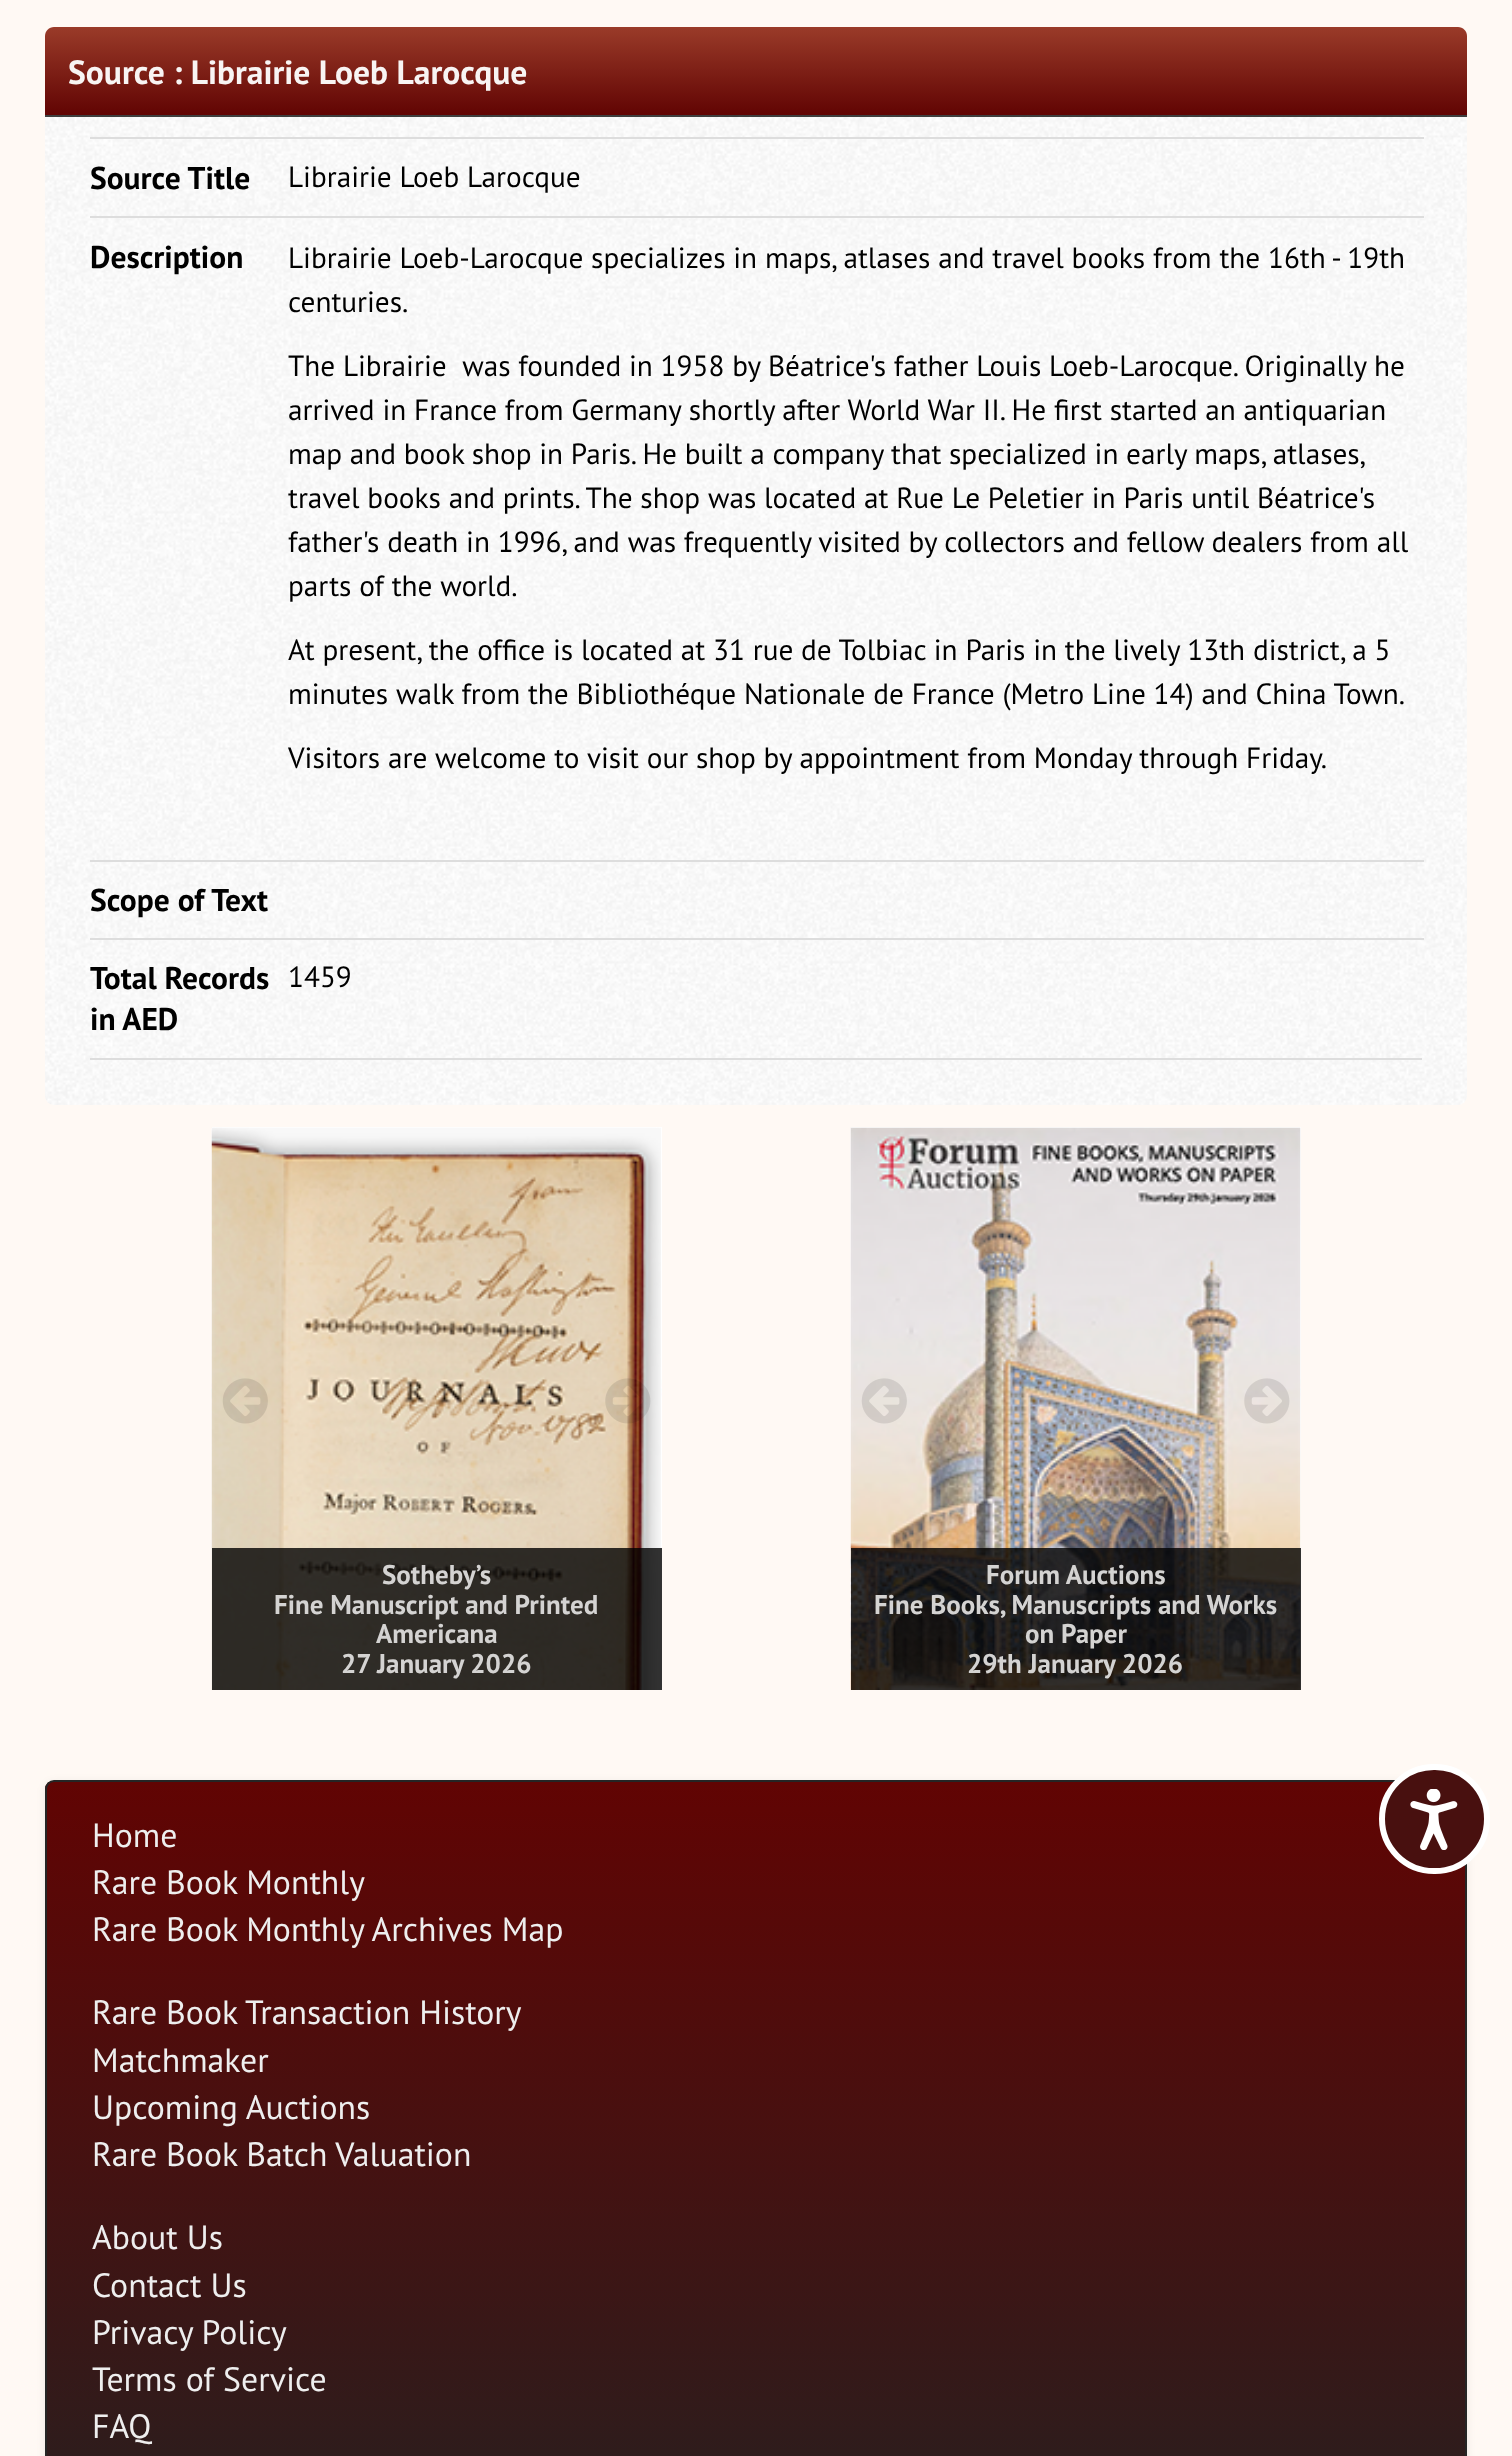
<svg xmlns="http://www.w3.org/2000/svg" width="1512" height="2456">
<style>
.a{font:bold 33.6px PT Sans;fill:#f8f4f3}
.b{font:bold 31.5px PT Sans;fill:#000}
.c{font:29.25px PT Sans;fill:#000}
.d{font:bold 27px PT Sans;fill:#d4d3d2}
.e{font:33.75px PT Sans;fill:#eee}
</style>
<defs>
<linearGradient id="g1" gradientUnits="userSpaceOnUse" x1="756" y1="27" x2="756" y2="115"><stop offset="0" stop-color="#9a3b29"/><stop offset="1" stop-color="#610403"/></linearGradient>
<clipPath id="clip1"><rect x="45" y="1780" width="1422" height="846" rx="9"/></clipPath>
<linearGradient id="g2" gradientUnits="userSpaceOnUse" x1="756" y1="1782" x2="756" y2="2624"><stop offset="0" stop-color="#610403"/><stop offset="1" stop-color="#222"/></linearGradient>
</defs>
<rect width="100%" height="100%" fill="#fff9f4"/>
<image href="1.png" x="45" y="27" width="1422" height="1078"/>
<path fill="#000000bf" d="M45 115h1422v2H45z"/>
<path fill="url(#g1)" d="M54 27h1404c5 0 9 4 9 9v79h-1422v-79c0-5 4-9 9-9z"/>
<path fill="#ddd" d="M90 137h1334v2H90z"/>
<path fill="#ddd" d="M90 1058h1332v2H90z"/>
<path fill="#ddd" d="M90 216h1334v2H90z"/>
<path fill="#ddd" d="M90 860h1334v2H90z"/>
<path fill="#ddd" d="M90 938h1334v2H90z"/>
<path fill="#fff" d="M212 1127h450v563H212z"/>
<image href="2.png" x="211" y="1128" width="451" height="562"/>
<image href="3.png" x="211" y="1127" width="450" height="563"/>
<image href="4.png" x="222" y="1378" width="46" height="46"/>
<image href="5.png" x="605" y="1378" width="46" height="46"/>
<path fill="#000000cc" d="M212 1548h450v142H212z"/>
<path fill="#fff" d="M851 1127h450v563H851z"/>
<image href="6.png" x="850" y="1128" width="451" height="562"/>
<image href="7.png" x="850" y="1127" width="451" height="563"/>
<image href="8.png" x="861" y="1378" width="46" height="46"/>
<image href="9.png" x="1244" y="1378" width="46" height="46"/>
<path fill="#000000cc" d="M851 1548h450v142H851z"/>
<rect fill="#00000012" filter="blur(4.5px)" x="45" y="1782" width="1422" height="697" rx="9"/>
<g clip-path="url(#clip1)">
<path fill="url(#g2)" d="M45 1782h1420v674H45z"/>
</g>
<rect fill="none" stroke="#252525" stroke-width="2" x="46" y="1781" width="1420" height="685" rx="8"/>
<rect fill="#48100f" stroke="#fff" stroke-width="6" x="1382" y="1767" width="105" height="104" rx="52"/>
<image href="10.png" x="1410" y="1789" width="48" height="61"/>
<text class="a" x="68" y="84">Source : Librairie Loeb Larocque</text>
<text class="b" x="90" y="189">Source Title</text>
<text class="c" x="288" y="187">Librairie Loeb Larocque</text>
<text class="b" x="90" y="268">Description</text>
<text class="c" x="288" y="268">Librairie Loeb-Larocque specializes in maps, atlases and travel books from the 16th - 19th</text>
<text class="c" x="288" y="312">centuries.</text>
<text class="c" xml:space="preserve" x="288" y="376">The Librairie  was founded in 1958 by Béatrice's father Louis Loeb-Larocque. Originally he</text>
<text class="c" x="288" y="420">arrived in France from Germany shortly after World War II. He first started an antiquarian</text>
<text class="c" x="288" y="464" word-spacing="-0.1">map and book shop in Paris. He built a company that specialized in early maps, atlases,</text>
<text class="c" x="288" y="508">travel books and prints. The shop was located at Rue Le Peletier in Paris until Béatrice's</text>
<text class="c" x="288" y="552">father's death in 1996, and was frequently visited by collectors and fellow dealers from all</text>
<text class="c" x="288" y="596">parts of the world.</text>
<text class="c" x="288" y="660">At present, the office is located at 31 rue de Tolbiac in Paris in the lively 13th district, a 5</text>
<text class="c" x="288" y="704">minutes walk from the Bibliothéque Nationale de France (Metro Line 14) and China Town.</text>
<text class="c" x="288" y="768">Visitors are welcome to visit our shop by appointment from Monday through Friday.</text>
<text class="b" x="90" y="911">Scope of Text</text>
<text class="b" x="90" y="989">Total Records</text>
<text class="b" x="90" y="1030">in AED</text>
<text class="c" x="288" y="987">1459</text>
<text class="d" x="382" y="1584">Sotheby’s</text>
<text class="d" x="274" y="1614">Fine Manuscript and Printed</text>
<text class="d" x="376" y="1643">Americana</text>
<text class="d" x="341" y="1673">27 January 2026</text>
<text class="d" x="986" y="1584">Forum Auctions</text>
<text class="d" x="874" y="1614">Fine Books, Manuscripts and Works</text>
<text class="d" x="1025" y="1643">on Paper</text>
<text class="d" x="967" y="1673">29th January 2026</text>
<text class="e" x="92" y="1847">Home</text>
<text class="e" x="92" y="1894">Rare Book Monthly</text>
<text class="e" x="92" y="1941">Rare Book Monthly Archives Map</text>
<text class="e" x="92" y="2024">Rare Book Transaction History</text>
<text class="e" x="92" y="2072">Matchmaker</text>
<text class="e" x="92" y="2119">Upcoming Auctions</text>
<text class="e" x="92" y="2166">Rare Book Batch Valuation</text>
<text class="e" x="92" y="2249">About Us</text>
<text class="e" x="92" y="2297">Contact Us</text>
<text class="e" x="92" y="2344">Privacy Policy</text>
<text class="e" x="92" y="2391">Terms of Service</text>
<text class="e" x="92" y="2438">FAQ</text>
</svg>
